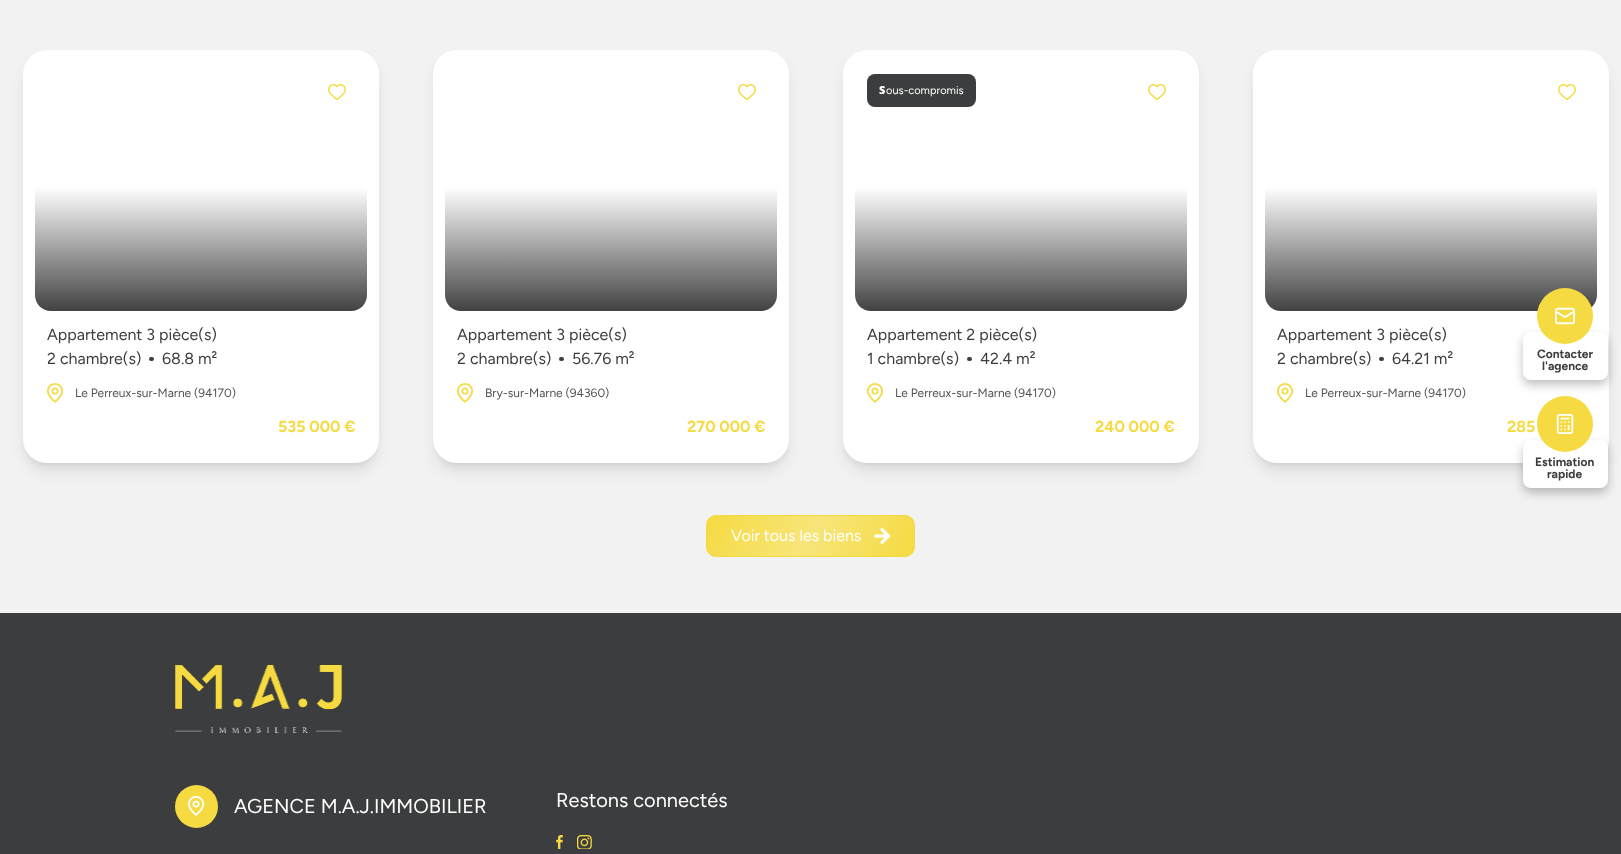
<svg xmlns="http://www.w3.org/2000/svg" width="1621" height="854">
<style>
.a{font:16px Figtree;fill:#3c3d3e}
.b{font:12px Figtree;fill:#535354}
.c{font:bold 16px Figtree;fill:#f5da41}
.d{font:900 11px Noto Sans;fill:#fff}
.e{font:11px Figtree;fill:#fff}
.f{font:16px Figtree;fill:#fff}
.g{font:bold 12px Figtree;fill:#3c3d3e}
.h{font:20px Figtree;fill:#fff}
</style>
<defs>
<linearGradient id="g1" gradientUnits="userSpaceOnUse" x1="201" y1="187" x2="201" y2="311"><stop offset="0" stop-color="#fff"/><stop offset="1" stop-color="#424242"/></linearGradient>
<linearGradient id="g2" gradientUnits="userSpaceOnUse" x1="611" y1="187" x2="611" y2="311"><stop offset="0" stop-color="#fff"/><stop offset="1" stop-color="#424242"/></linearGradient>
<linearGradient id="g3" gradientUnits="userSpaceOnUse" x1="1021" y1="187" x2="1021" y2="311"><stop offset="0" stop-color="#fff"/><stop offset="1" stop-color="#424242"/></linearGradient>
<linearGradient id="g4" gradientUnits="userSpaceOnUse" x1="1431" y1="187" x2="1431" y2="311"><stop offset="0" stop-color="#fff"/><stop offset="1" stop-color="#424242"/></linearGradient>
<linearGradient id="g5" gradientUnits="userSpaceOnUse" x1="724" y1="486" x2="897" y2="586"><stop offset="0" stop-color="#fff" stop-opacity="0"/><stop offset="0.5" stop-color="#fff" stop-opacity="0.3"/><stop offset="1" stop-color="#fff" stop-opacity="0"/></linearGradient>
</defs>
<rect width="100%" height="100%" fill="#3c3d3e"/>
<path fill="#f2f2f2" d="M0 0h1621v613H0z"/>
<rect fill="#0000001a" filter="blur(3px)" x="27" y="58" width="348" height="405" rx="20"/>
<rect fill="#0000001a" filter="blur(7.5px)" x="26" y="63" width="350" height="407" rx="21"/>
<rect fill="#fff" x="23" y="50" width="356" height="413" rx="24"/>
<image href="1.png" x="328" y="84" width="18" height="16"/>
<path fill="url(#g1)" d="M35 187h332v108c0 9-7 16-16 16h-300c-9 0-16-7-16-16z"/>
<rect fill="#3c3d3e" x="149" y="357" width="5" height="4" rx="2"/>
<image href="2.png" x="47" y="383" width="16" height="20"/>
<rect fill="#0000001a" filter="blur(3px)" x="437" y="58" width="348" height="405" rx="20"/>
<rect fill="#0000001a" filter="blur(7.5px)" x="436" y="63" width="350" height="407" rx="21"/>
<rect fill="#fff" x="433" y="50" width="356" height="413" rx="24"/>
<image href="1.png" x="738" y="84" width="18" height="16"/>
<path fill="url(#g2)" d="M445 187h332v108c0 9-7 16-16 16h-300c-9 0-16-7-16-16z"/>
<rect fill="#3c3d3e" x="559" y="357" width="5" height="4" rx="2"/>
<image href="2.png" x="457" y="383" width="16" height="20"/>
<rect fill="#0000001a" filter="blur(3px)" x="847" y="58" width="348" height="405" rx="20"/>
<rect fill="#0000001a" filter="blur(7.5px)" x="846" y="63" width="350" height="407" rx="21"/>
<rect fill="#fff" x="843" y="50" width="356" height="413" rx="24"/>
<rect fill="#3c3d3e" x="867" y="74" width="109" height="33" rx="8"/>
<image href="1.png" x="1148" y="84" width="18" height="16"/>
<path fill="url(#g3)" d="M855 187h332v108c0 9-7 16-16 16h-300c-9 0-16-7-16-16z"/>
<rect fill="#3c3d3e" x="967" y="357" width="5" height="4" rx="2"/>
<image href="2.png" x="867" y="383" width="16" height="20"/>
<rect fill="#0000001a" filter="blur(3px)" x="1257" y="58" width="348" height="405" rx="20"/>
<rect fill="#0000001a" filter="blur(7.5px)" x="1256" y="63" width="350" height="407" rx="21"/>
<rect fill="#fff" x="1253" y="50" width="356" height="413" rx="24"/>
<image href="1.png" x="1558" y="84" width="18" height="16"/>
<path fill="url(#g4)" d="M1265 187h332v108c0 9-7 16-16 16h-300c-9 0-16-7-16-16z"/>
<rect fill="#3c3d3e" x="1379" y="357" width="5" height="4" rx="2"/>
<image href="2.png" x="1277" y="383" width="16" height="20"/>
<rect fill="#f5da41" stroke="#f5da41" x="706.5" y="515.5" width="208" height="41" rx="9.5"/>
<image href="3.png" x="874" y="528" width="16" height="16"/>
<rect fill="#0a0a0a40" filter="blur(5px)" x="1523" y="337" width="85" height="48" rx="8"/>
<rect fill="#fff" x="1523" y="332" width="85" height="48" rx="8"/>
<circle fill="#f5da41" cx="1565" cy="316" r="28"/>
<image href="4.png" x="1555" y="307" width="20" height="18"/>
<rect fill="#0a0a0a40" filter="blur(5px)" x="1523" y="445" width="85" height="48" rx="8"/>
<rect fill="#fff" x="1523" y="440" width="85" height="48" rx="8"/>
<circle fill="#f5da41" cx="1565" cy="424" r="28"/>
<image href="5.png" x="1556" y="414" width="18" height="20"/>
<image href="6.png" x="175" y="664" width="168" height="70"/>
<circle fill="#f5da41" cx="196.5" cy="806.5" r="21.5"/>
<image href="7.png" x="188" y="796" width="16" height="20"/>
<image href="8.png" x="556" y="835" width="7" height="14"/>
<image href="9.png" x="577" y="835" width="15" height="14"/>
<text class="a" x="47" y="340">Appartement 3 pièce(s)</text>
<text class="a" x="47" y="364">2 chambre(s)</text>
<text class="a" x="162" y="364">68.8 m²</text>
<text class="b" x="75" y="397">Le Perreux-sur-Marne (94170)</text>
<text class="c" x="278" y="432">535 000 €</text>
<text class="a" x="457" y="340">Appartement 3 pièce(s)</text>
<text class="a" x="457" y="364">2 chambre(s)</text>
<text class="a" x="572" y="364">56.76 m²</text>
<text class="b" x="485" y="397">Bry-sur-Marne (94360)</text>
<text class="c" x="687" y="432">270 000 €</text>
<text class="d" x="879" y="94">S</text>
<text class="e" x="886" y="94">ous-compromis</text>
<text class="a" x="867" y="340">Appartement 2 pièce(s)</text>
<text class="a" x="867" y="364">1 chambre(s)</text>
<text class="a" x="980" y="364">42.4 m²</text>
<text class="b" x="895" y="397">Le Perreux-sur-Marne (94170)</text>
<text class="c" x="1095" y="432">240 000 €</text>
<text class="a" x="1277" y="340">Appartement 3 pièce(s)</text>
<text class="a" x="1277" y="364">2 chambre(s)</text>
<text class="a" x="1392" y="364">64.21 m²</text>
<text class="b" x="1305" y="397">Le Perreux-sur-Marne (94170)</text>
<text class="c" x="1507" y="432">285</text>
<text class="f" x="731" y="541">Voir tous les biens</text>
<rect fill="url(#g5)" x="707" y="516" width="207" height="40" rx="9"/>
<text class="g" x="1537" y="358">Contacter</text>
<text class="g" x="1542" y="370">l'agence</text>
<text class="g" x="1535" y="466">Estimation</text>
<text class="g" x="1547" y="478">rapide</text>
<text class="h" x="234" y="813">AGENCE M.A.J.IMMOBILIER</text>
<text class="h" x="556" y="807">Restons connectés</text>
</svg>
